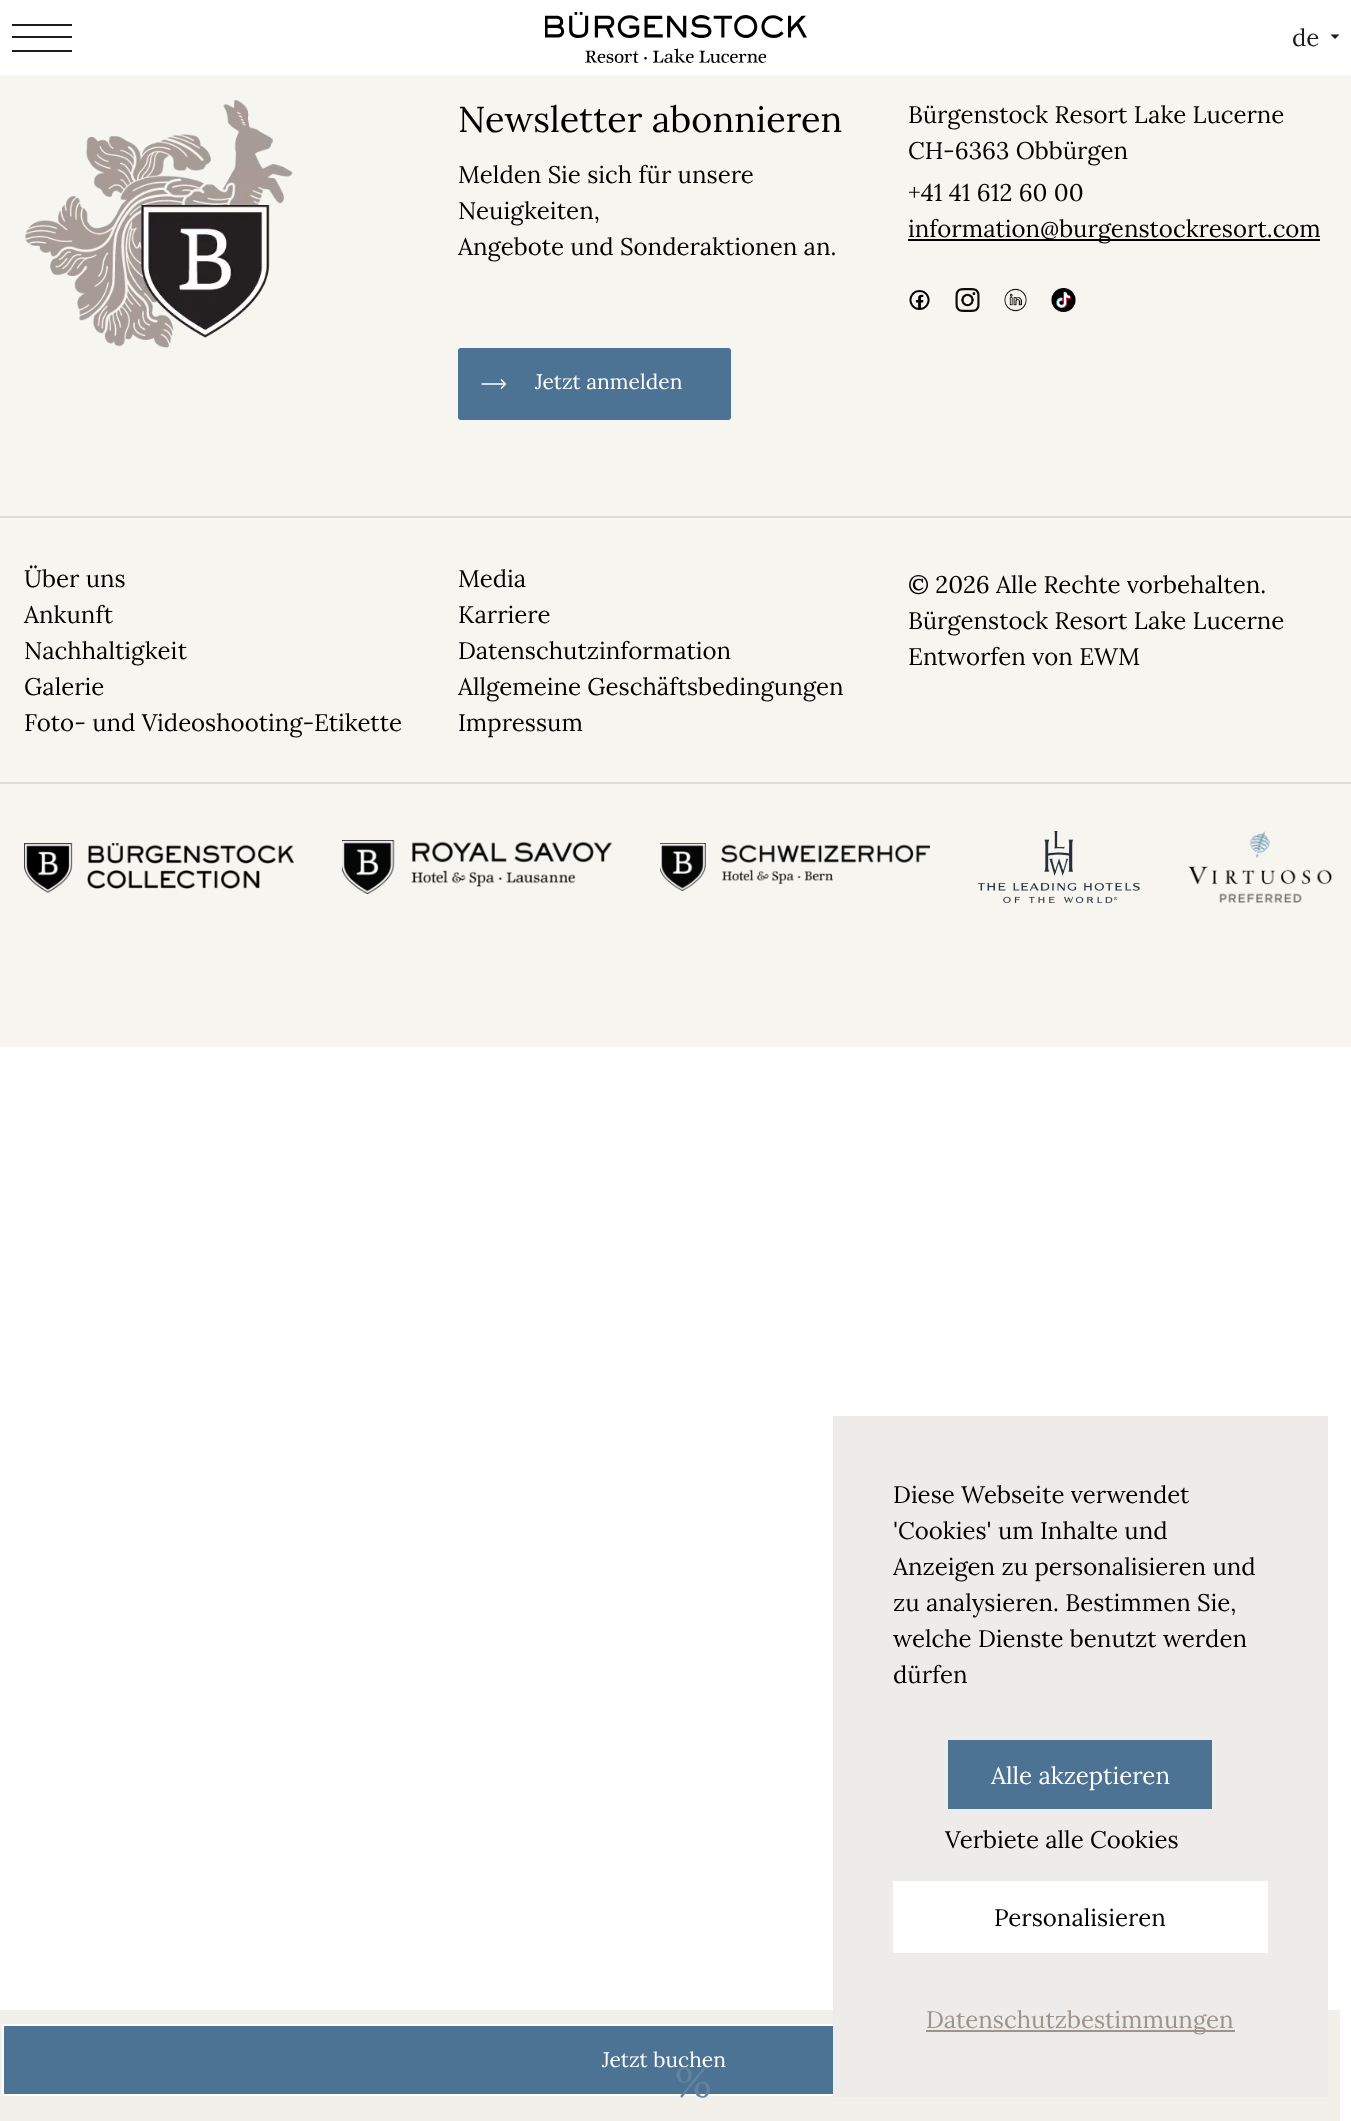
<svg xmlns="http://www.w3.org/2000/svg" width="1351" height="2121">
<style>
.a{font:24px Lora;fill:#1d1d1f}
.b{font:21px Lora;fill:#fff}
.c{font:36px Lora;fill:#000}
.d{font:24px Lora;fill:#000}
.e{font:42px Lora;fill:#6283a0}
.f{font:24px Lora;fill:#fff}
.g{font:24px Lora;fill:#9f9287}
</style>
<rect width="100%" height="100%" fill="#fff"/>
<path fill="#1d1d1f" d="M12 24h60v2H12z"/>
<path fill="#1d1d1f" d="M12 36h60v2H12z"/>
<path fill="#1d1d1f" d="M12 50h60v2H12z"/>
<image href="1.png" x="545" y="12" width="262" height="51"/>
<path fill="#1d1d1f" d="M1330.5 34.5h9l-4.5 4.5z"/>
<path fill="#f1f0eb" d="M0 2010h1340v111H0z"/>
<rect fill="#4c7294" stroke="#fff" stroke-width="2" x="3" y="2025" width="1322" height="70" rx="2"/>
<path fill="#f6f5ef" d="M0 75h1351v972H0z"/>
<image href="2.png" x="25" y="100" width="268" height="248"/>
<rect fill="#4c7294" x="458" y="348" width="273" height="72" rx="3"/>
<path fill="none" stroke="#fff" stroke-width="1.5" d="M481.5 384h24m0 0l-4.5-4.5m4.5 4.5l-4.5 4.5"/>
<path fill="#000" d="M908 239h412v2H908z"/>
<image href="3.png" x="909" y="290" width="21" height="20"/>
<image href="4.png" x="955" y="288" width="25" height="24"/>
<image href="5.png" x="1004" y="288" width="23" height="24"/>
<image href="6.png" x="1051" y="288" width="25" height="24"/>
<path fill="#ddddd7" d="M0 516h1351v2H0z"/>
<path fill="#ddddd7" d="M0 782h1351v2H0z"/>
<image href="7.png" x="24" y="843" width="270" height="50"/>
<image href="8.png" x="342" y="840" width="270" height="54"/>
<image href="9.png" x="660" y="843" width="270" height="48"/>
<image href="10.png" x="978" y="831" width="162" height="72"/>
<image href="11.png" x="1188" y="831" width="144" height="72"/>
<path fill="#edecea" d="M833 1416h495v681H833z"/>
<path fill="#4c7294" d="M948 1740h264v69H948z"/>
<path fill="#fff" d="M893 1881h375v72H893z"/>
<path fill="#9f9287" d="M926 2030h309v2H926z"/>
<text class="a" x="1292" y="46">de</text>
<text class="b" x="602" y="2067">Jetzt buchen</text>
<text class="c" x="458" y="132">Newsletter abonnieren</text>
<text class="d" x="458" y="183">Melden Sie sich für unsere</text>
<text class="d" x="458" y="219">Neuigkeiten,</text>
<text class="d" x="458" y="255">Angebote und Sonderaktionen an.</text>
<text class="b" x="535" y="389">Jetzt anmelden</text>
<text class="d" x="908" y="123">Bürgenstock Resort Lake Lucerne</text>
<text class="d" x="908" y="159">CH-6363 Obbürgen</text>
<text class="d" x="908" y="201">+41 41 612 60 00</text>
<text class="d" x="908" y="237">information@burgenstockresort.com</text>
<text class="d" x="24" y="587">Über uns</text>
<text class="d" x="24" y="623">Ankunft</text>
<text class="d" x="24" y="659">Nachhaltigkeit</text>
<text class="d" x="24" y="695">Galerie</text>
<text class="d" x="24" y="731">Foto- und Videoshooting-Etikette</text>
<text class="d" x="458" y="587">Media</text>
<text class="d" x="458" y="623">Karriere</text>
<text class="d" x="458" y="659">Datenschutzinformation</text>
<text class="d" x="458" y="695">Allgemeine Geschäftsbedingungen</text>
<text class="d" x="458" y="731">Impressum</text>
<text class="d" x="908" y="593">© 2026 Alle Rechte vorbehalten.</text>
<text class="d" x="908" y="629">Bürgenstock Resort Lake Lucerne</text>
<text class="d" x="908" y="665">Entworfen von EWM</text>
<text class="e" x="675" y="2097">%</text>
<text class="d" x="893" y="1503">Diese Webseite verwendet</text>
<text class="d" x="893" y="1539">'Cookies' um Inhalte und</text>
<text class="d" x="893" y="1575">Anzeigen zu personalisieren und</text>
<text class="d" x="893" y="1611">zu analysieren. Bestimmen Sie,</text>
<text class="d" x="893" y="1647">welche Dienste benutzt werden</text>
<text class="d" x="893" y="1683">dürfen</text>
<text class="f" x="991" y="1784">Alle akzeptieren</text>
<text class="d" x="945" y="1848">Verbiete alle Cookies</text>
<text class="d" x="994" y="1926">Personalisieren</text>
<text class="g" x="926" y="2028">Datenschutzbestimmungen</text>
</svg>
